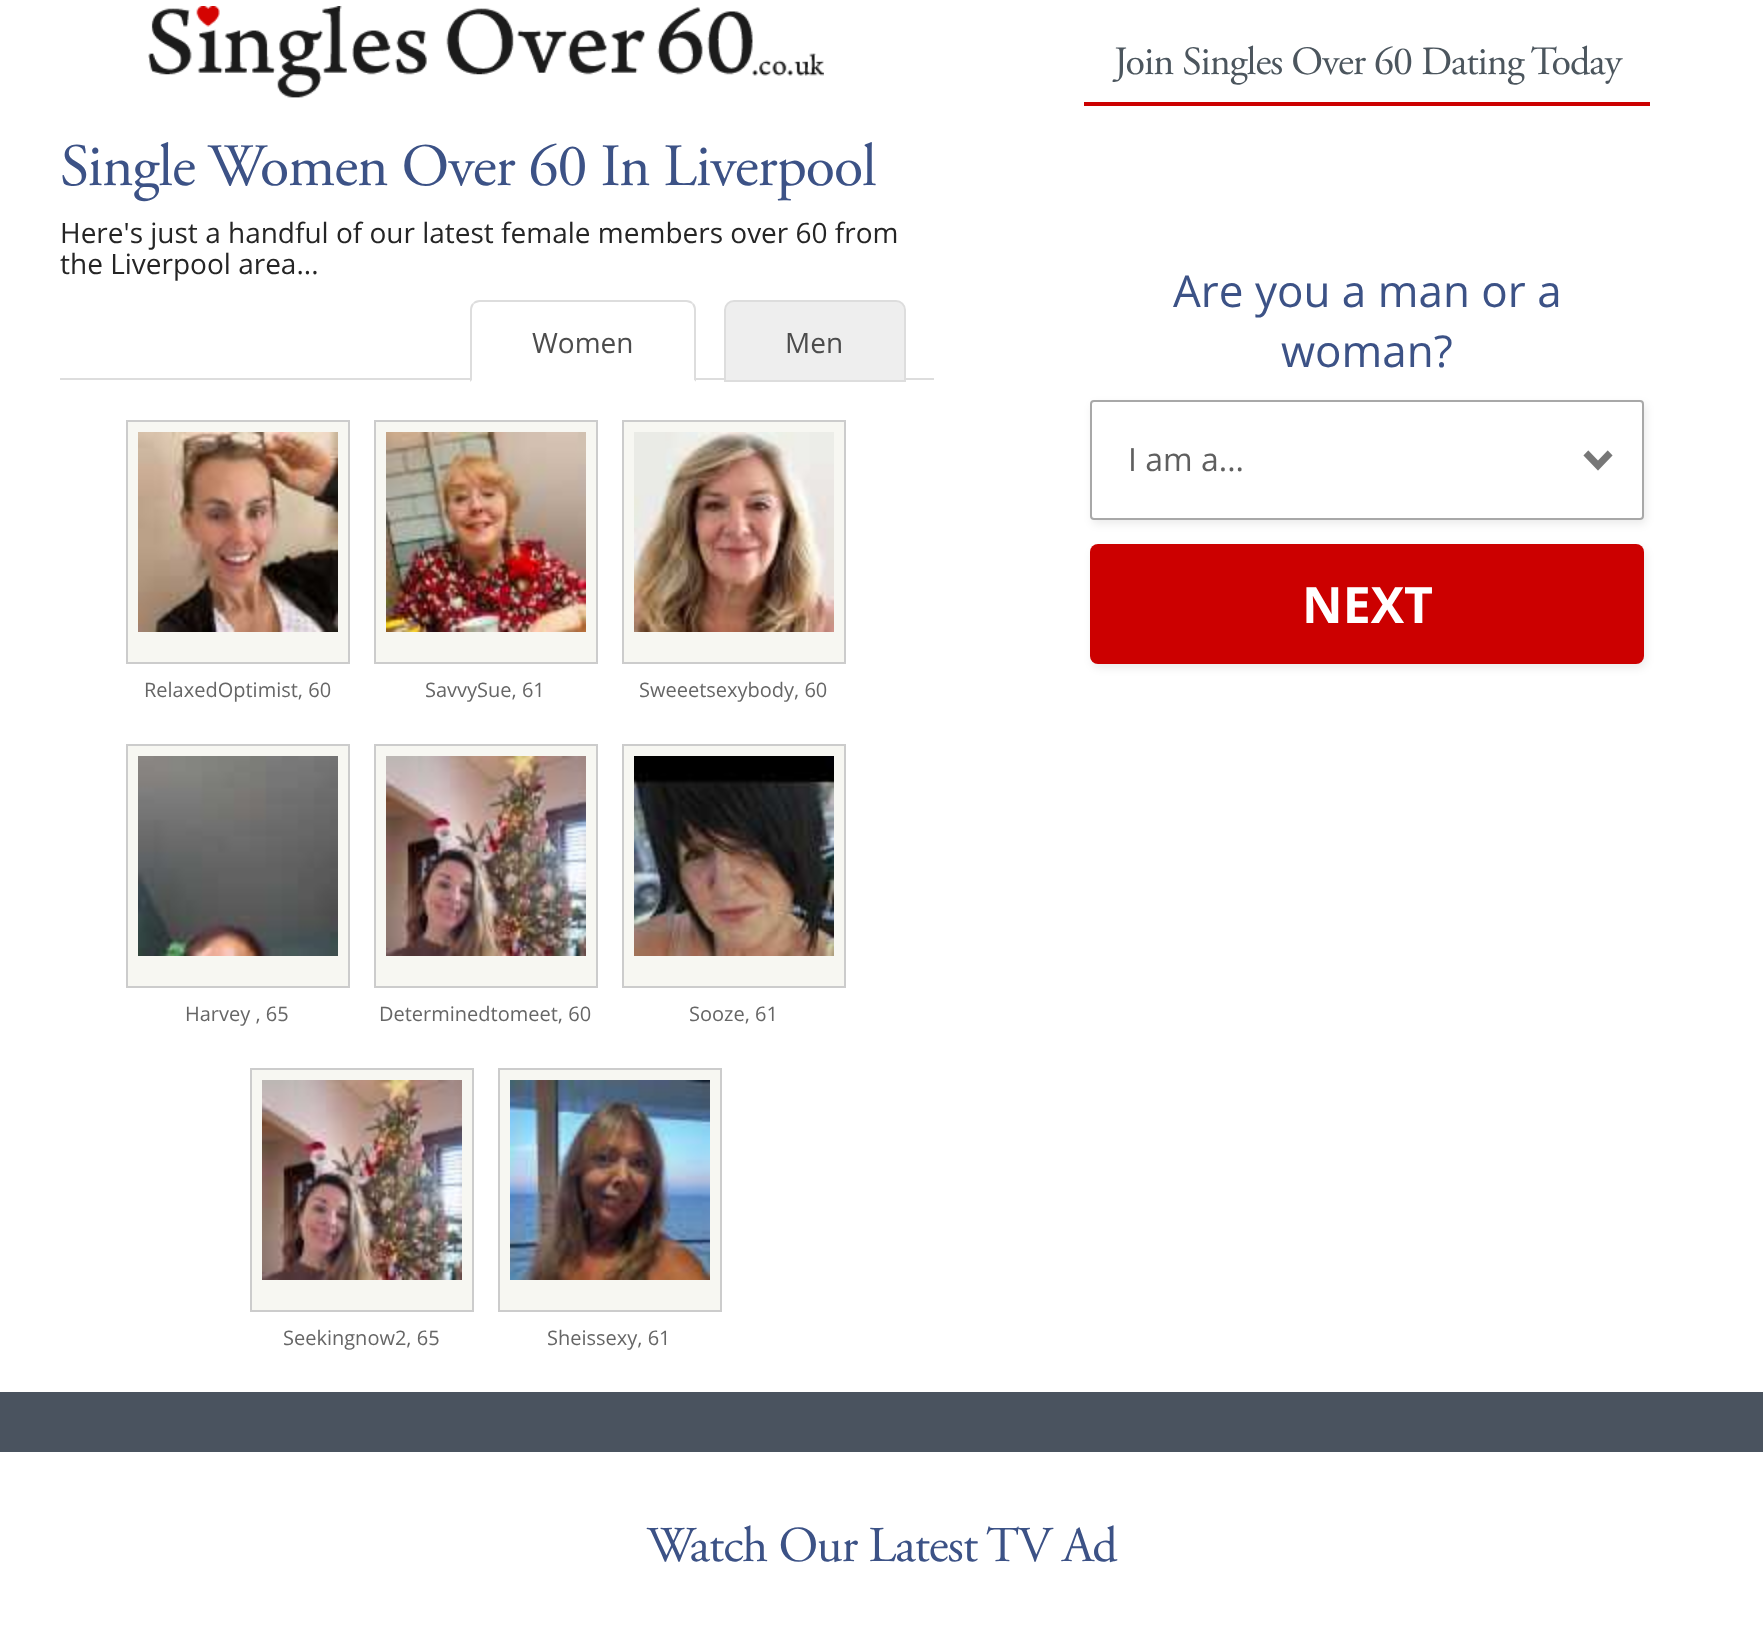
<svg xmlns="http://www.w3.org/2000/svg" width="1763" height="1639">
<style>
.a{font:60px Adobe Garamond;letter-spacing:-1px;fill:#3c5286}
.b{font:28px Open Sans;fill:#252525}
.c{font:28px Open Sans;fill:#4c4c4c}
.d{font:20px Open Sans;fill:#666}
.e{font:40px Adobe Garamond;letter-spacing:-1px;fill:#4c565e}
.f{font:44px Open Sans;fill:#3c5286}
.g{font:32px Open Sans;fill:#5f5f5f}
.h{font:bold 50px Open Sans;fill:#fff}
.i{font:50px Adobe Garamond;letter-spacing:-1px;fill:#3c5286}
</style>
<rect width="100%" height="100%" fill="#4a535f"/>
<path fill="#fff" d="M0 0h1763v1392H0z"/>
<image href="1.png" x="148" y="6" width="676" height="92"/>
<path fill="#ddd" d="M60 378h874v2H60z"/>
<path fill="#fff" d="M480 300h206c5.5 0 10 4.5 10 10v72h-226v-72c0-5.5 4.5-10 10-10z"/>
<path fill="#ddd" d="M480 300c-3 0-6 1-7 3l1 1c2-1 4-2 6-2h206c2 0 4 1 6 2l1-1c-1-2-4-3-7-3z"/>
<path fill="#ddd" d="M696 382v-72c0-3-1-6-3-7l-1 1c1 2 2 4 2 6v70z"/>
<path fill="#fff" d="M696 382l-2-2h-222l-2 2z"/>
<path fill="#ddd" d="M470 382l2-2v-70c0-2 1-4 2-6l-1-1c-2 1-3 4-3 7z"/>
<path fill="#eee" stroke="#ddd" stroke-width="2" d="M734 301h162c5 0 9 4 9 9v71h-180v-71c0-5 4-9 9-9z"/>
<path fill="#f7f7f2" stroke="#ccc" stroke-width="2" d="M127 421h222v242H127z"/>
<image href="2.png" x="138" y="432" width="200" height="200"/>
<path fill="#f7f7f2" stroke="#ccc" stroke-width="2" d="M375 421h222v242H375z"/>
<image href="3.png" x="386" y="432" width="200" height="200"/>
<path fill="#f7f7f2" stroke="#ccc" stroke-width="2" d="M623 421h222v242H623z"/>
<image href="4.png" x="634" y="432" width="200" height="200"/>
<path fill="#f7f7f2" stroke="#ccc" stroke-width="2" d="M127 745h222v242H127z"/>
<image href="5.png" x="138" y="756" width="200" height="200"/>
<path fill="#f7f7f2" stroke="#ccc" stroke-width="2" d="M375 745h222v242H375z"/>
<image href="6.png" x="386" y="756" width="200" height="200"/>
<path fill="#f7f7f2" stroke="#ccc" stroke-width="2" d="M623 745h222v242H623z"/>
<image href="7.png" x="634" y="756" width="200" height="200"/>
<path fill="#f7f7f2" stroke="#ccc" stroke-width="2" d="M251 1069h222v242H251z"/>
<image href="6.png" x="262" y="1080" width="200" height="200"/>
<path fill="#f7f7f2" stroke="#ccc" stroke-width="2" d="M499 1069h222v242H499z"/>
<image href="8.png" x="510" y="1080" width="200" height="200"/>
<path fill="#c00" d="M1084 102h566v4H1084z"/>
<rect fill="#00000014" filter="blur(4px)" x="1092" y="404" width="554" height="120" rx="4"/>
<rect fill="#fff" x="1090" y="400" width="554" height="120" rx="4"/>
<image href="9.png" x="1583" y="450" width="30" height="21"/>
<rect fill="none" stroke="#a8a8a8" stroke-width="2" x="1091" y="401" width="552" height="118" rx="3"/>
<rect fill="#00000014" filter="blur(4px)" x="1092" y="548" width="554" height="120" rx="8"/>
<rect fill="#c00" x="1090" y="544" width="554" height="120" rx="8"/>
<path fill="#fff" d="M0 1452h1763v187H0z"/>
<text class="a" x="60" y="185">Single Women Over 60 In Liverpool</text>
<text class="b" x="60" y="243">Here's just a handful of our latest female members over 60 from</text>
<text class="b" x="60" y="274">the Liverpool area...</text>
<text class="c" x="532" y="353">Women</text>
<text class="c" x="785" y="353">Men</text>
<text class="d" x="144" y="697">RelaxedOptimist, 60</text>
<text class="d" x="425" y="697">SavvySue, 61</text>
<text class="d" x="639" y="697">Sweeetsexybody, 60</text>
<text class="d" x="185" y="1021">Harvey , 65</text>
<text class="d" x="379" y="1021">Determinedtomeet, 60</text>
<text class="d" x="689" y="1021">Sooze, 61</text>
<text class="d" x="283" y="1345">Seekingnow2, 65</text>
<text class="d" x="547" y="1345">Sheissexy, 61</text>
<text class="e" x="1114" y="74">Join Singles Over 60 Dating Today</text>
<text class="f" x="1173" y="307">Are you a man or a</text>
<text class="f" x="1281" y="367">woman?</text>
<text class="g" x="1128" y="471">I am a...</text>
<text class="h" x="1302" y="623">NEXT</text>
<text class="i" x="647" y="1561">Watch Our Latest TV Ad</text>
</svg>
